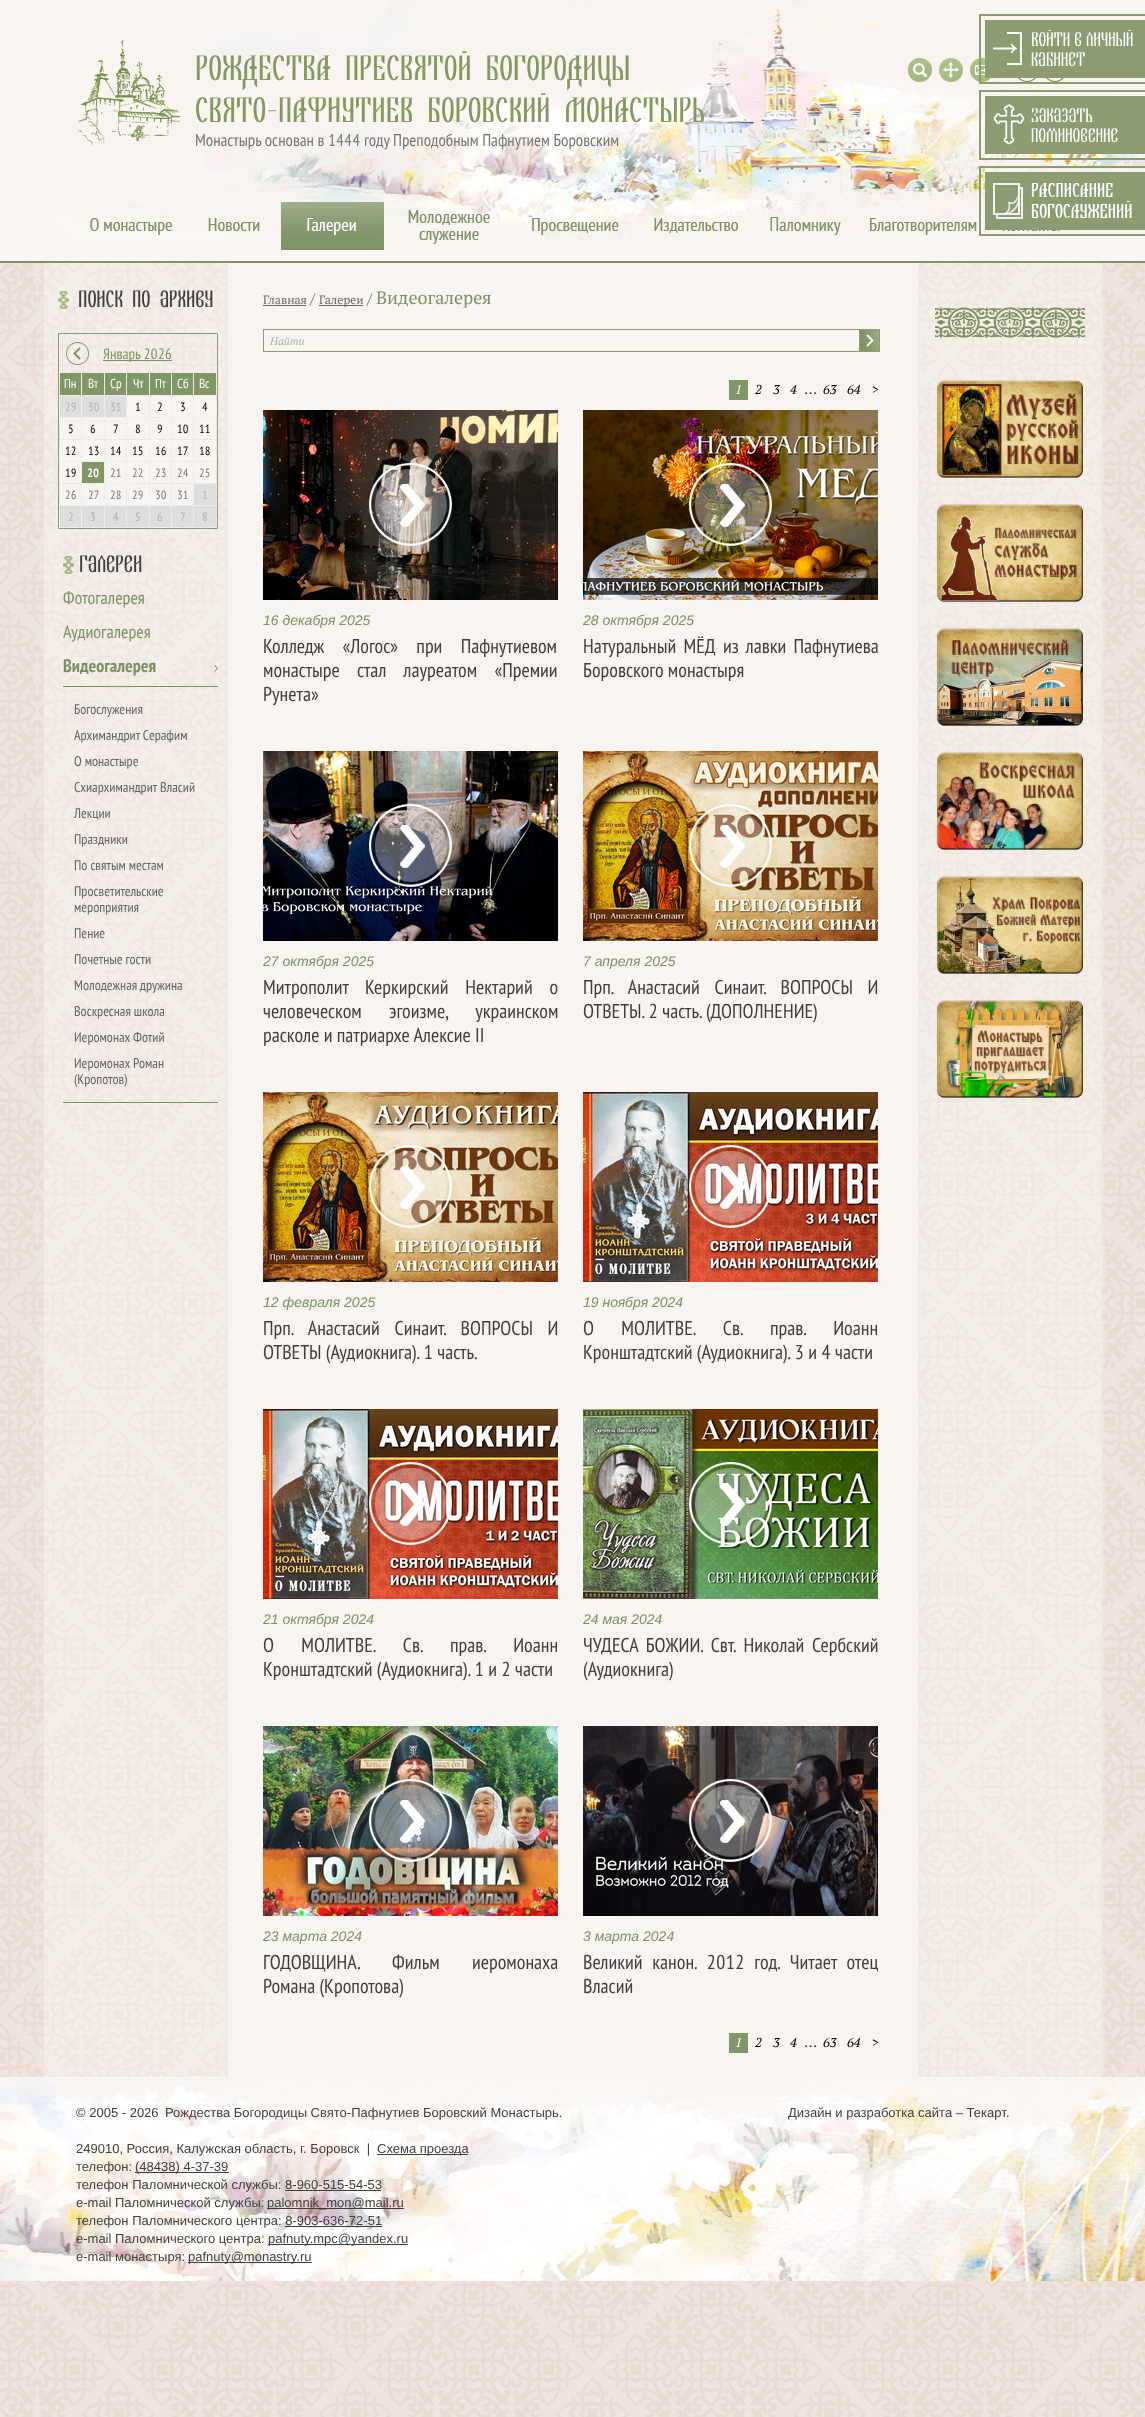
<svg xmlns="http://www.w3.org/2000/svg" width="1145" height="2417">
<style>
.a{font:500 36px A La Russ;fill:#839960}
.b{font:17px PT Sans Narrow;fill:#73786c}
.c{font:500 24px A La Russ;fill:#3e3e3e}
.d{font:15px PT Sans Narrow;fill:#7c9064}
.e{font:13px PT Sans Narrow;fill:#fff}
.f{font:12px PT Sans Narrow;fill:#b2b0b0}
.g{font:12px PT Sans Narrow;fill:#000}
.h{font:bold 12px PT Sans Narrow;fill:#fff}
.i{font:12px PT Sans Narrow;fill:#767676}
.j{font:18px PT Sans Narrow;fill:#7c9064}
.k{font:bold 18px PT Sans Narrow;fill:#7c9064}
.l{font:14px PT Sans Narrow;fill:#626262}
.m{font:12px PT Serif;fill:#686967}
.n{font:15px PT Serif;fill:#686967}
.o{font:18px PT Serif;fill:#7c9064}
.p{font:italic 11px PT Serif;fill:#ababab}
.q{font:italic 13px PT Serif;fill:#f9f4f1}
.r{font:italic 13px PT Serif;fill:#000}
.s{font:15px PT Serif;fill:#3e3e3e}
.t{font:italic 14px Liberation Sans;fill:#7c9064}
.u{font:20px PT Sans Narrow;fill:#3e3e3e}
.v{font:13px Liberation Sans;fill:#3e3e3e}
</style>
<rect width="100%" height="100%" fill="#efe5de"/>
<image href="1.png" x="0" y="263" width="1145" height="2154"/>
<image href="2.png" x="0" y="0" width="1145" height="263"/>
<image href="3.png" x="0" y="2077" width="1145" height="204"/>
<image href="4.png" x="57" y="0" width="1088" height="241"/>
<image href="5.png" x="78" y="40" width="102" height="106"/>
<image href="6.png" x="908" y="58" width="12" height="24"/>
<image href="7.png" x="908" y="58" width="24" height="24"/>
<image href="8.png" x="939" y="58" width="24" height="24"/>
<image href="9.png" x="970" y="58" width="21" height="24"/>
<image href="10.png" x="1018" y="78" width="18" height="4"/>
<image href="11.png" x="1046" y="78" width="18" height="4"/>
<image href="12.png" x="90" y="218" width="82" height="17"/>
<image href="13.png" x="208" y="218" width="52" height="13"/>
<image href="14.png" x="281" y="202" width="103" height="48"/>
<image href="15.png" x="408" y="210" width="82" height="34"/>
<image href="16.png" x="532" y="218" width="87" height="17"/>
<image href="17.png" x="654" y="218" width="84" height="15"/>
<image href="18.png" x="770" y="217" width="71" height="18"/>
<image href="19.png" x="870" y="218" width="107" height="17"/>
<image href="20.png" x="1002" y="230" width="58" height="1"/>
<image href="21.png" x="43" y="263" width="1060" height="1815"/>
<image href="22.png" x="58" y="291" width="11" height="18"/>
<path fill="none" stroke="#8b9c74" d="M58.5 333.5h159v195H58.5z"/>
<image href="23.png" x="66" y="342" width="23" height="23"/>
<path fill="#7c9064" d="M103 360h69v1H103z"/>
<path fill="#809667" d="M60 373h21v22H60z"/>
<path fill="#809667" d="M82 373h22v22H82z"/>
<path fill="#809667" d="M105 373h21v22H105z"/>
<path fill="#809667" d="M127 373h22v22H127z"/>
<path fill="#809667" d="M150 373h21v22H150z"/>
<path fill="#809667" d="M172 373h21v22H172z"/>
<path fill="#809667" d="M194 373h22v22H194z"/>
<path fill="#ddd" d="M60 396h21v21H60z"/>
<path fill="#ddd" d="M82 396h22v21H82z"/>
<path fill="#ddd" d="M105 396h21v21H105z"/>
<path fill="#f8f4f1" d="M127 396h22v21H127z"/>
<path fill="#f8f4f1" d="M150 396h21v21H150z"/>
<path fill="#f8f4f1" d="M172 396h21v21H172z"/>
<path fill="#f8f4f1" d="M194 396h22v21H194z"/>
<path fill="#f8f4f1" d="M60 418h21v21H60z"/>
<path fill="#f8f4f1" d="M82 418h22v21H82z"/>
<path fill="#f8f4f1" d="M105 418h21v21H105z"/>
<path fill="#f8f4f1" d="M127 418h22v21H127z"/>
<path fill="#f8f4f1" d="M150 418h21v21H150z"/>
<path fill="#f8f4f1" d="M172 418h21v21H172z"/>
<path fill="#f8f4f1" d="M194 418h22v21H194z"/>
<path fill="#f8f4f1" d="M60 440h21v21H60z"/>
<path fill="#f8f4f1" d="M82 440h22v21H82z"/>
<path fill="#f8f4f1" d="M105 440h21v21H105z"/>
<path fill="#f8f4f1" d="M127 440h22v21H127z"/>
<path fill="#f8f4f1" d="M150 440h21v21H150z"/>
<path fill="#f8f4f1" d="M172 440h21v21H172z"/>
<path fill="#f8f4f1" d="M194 440h22v21H194z"/>
<path fill="#f8f4f1" d="M60 462h21v21H60z"/>
<path fill="#809667" d="M82 462h22v21H82z"/>
<path fill="#f8f4f1" d="M105 462h21v21H105z"/>
<path fill="#f8f4f1" d="M127 462h22v21H127z"/>
<path fill="#f8f4f1" d="M150 462h21v21H150z"/>
<path fill="#f8f4f1" d="M172 462h21v21H172z"/>
<path fill="#f8f4f1" d="M194 462h22v21H194z"/>
<path fill="#f8f4f1" d="M60 484h21v21H60z"/>
<path fill="#f8f4f1" d="M82 484h22v21H82z"/>
<path fill="#f8f4f1" d="M105 484h21v21H105z"/>
<path fill="#f8f4f1" d="M127 484h22v21H127z"/>
<path fill="#f8f4f1" d="M150 484h21v21H150z"/>
<path fill="#f8f4f1" d="M172 484h21v21H172z"/>
<path fill="#ddd" d="M194 484h22v21H194z"/>
<path fill="#ddd" d="M60 506h21v21H60z"/>
<path fill="#ddd" d="M82 506h22v21H82z"/>
<path fill="#ddd" d="M105 506h21v21H105z"/>
<path fill="#ddd" d="M127 506h22v21H127z"/>
<path fill="#ddd" d="M150 506h21v21H150z"/>
<path fill="#ddd" d="M172 506h21v21H172z"/>
<path fill="#ddd" d="M194 506h22v21H194z"/>
<image href="24.png" x="63" y="556" width="11" height="18"/>
<image href="25.png" x="214" y="665" width="4" height="7"/>
<path fill="#7c9064" d="M63 686h155v1H63z"/>
<path fill="#7c9064" d="M63 1102h155v1H63z"/>
<path fill="#686967" d="M263 305h43v1H263z"/>
<path fill="#686967" d="M319 305h44v1H319z"/>
<path fill="#8b9c74" d="M263 329h596v1H263z"/>
<path fill="#8b9c74" d="M263 351h596v1H263z"/>
<path fill="#8b9c74" d="M263 329h1v23H263z"/>
<image href="26.png" x="859" y="329" width="21" height="23"/>
<path fill="#809667" d="M729 380h19v20H729z"/>
<image href="27.png" x="263" y="410" width="295" height="190"/>
<image href="28.png" x="369" y="463" width="83" height="83"/>
<image href="29.png" x="583" y="410" width="295" height="190"/>
<image href="30.png" x="689" y="463" width="83" height="83"/>
<image href="31.png" x="263" y="751" width="295" height="190"/>
<image href="32.png" x="369" y="804" width="83" height="83"/>
<image href="33.png" x="583" y="751" width="295" height="190"/>
<image href="34.png" x="689" y="804" width="83" height="83"/>
<image href="35.png" x="263" y="1092" width="295" height="190"/>
<image href="36.png" x="369" y="1145" width="83" height="83"/>
<image href="37.png" x="583" y="1092" width="295" height="190"/>
<image href="38.png" x="689" y="1145" width="83" height="83"/>
<image href="39.png" x="263" y="1409" width="295" height="190"/>
<image href="38.png" x="369" y="1462" width="83" height="83"/>
<image href="40.png" x="583" y="1409" width="295" height="190"/>
<image href="41.png" x="689" y="1462" width="83" height="83"/>
<image href="42.png" x="263" y="1726" width="295" height="190"/>
<image href="43.png" x="369" y="1779" width="83" height="83"/>
<image href="44.png" x="583" y="1726" width="295" height="190"/>
<image href="45.png" x="689" y="1779" width="83" height="83"/>
<path fill="#809667" d="M729 2033h19v20H729z"/>
<image href="46.png" x="935" y="307" width="150" height="31"/>
<image href="47.png" x="937" y="380" width="146" height="98"/>
<image href="48.png" x="937" y="504" width="146" height="98"/>
<image href="49.png" x="937" y="628" width="146" height="98"/>
<image href="50.png" x="937" y="752" width="146" height="98"/>
<image href="51.png" x="937" y="876" width="146" height="98"/>
<image href="52.png" x="937" y="1000" width="146" height="98"/>
<path fill="#3e3e3e" d="M377 2154h91v1H377z"/>
<path fill="#3e3e3e" d="M135 2172h94v1H135z"/>
<path fill="#3e3e3e" d="M285 2190h96v1H285z"/>
<path fill="#3e3e3e" d="M267 2208h137v1H267z"/>
<path fill="#3e3e3e" d="M285 2226h97v1H285z"/>
<path fill="#3e3e3e" d="M268 2244h140v1H268z"/>
<path fill="#3e3e3e" d="M188 2262h124v1H188z"/>
<image href="53.png" x="979" y="14" width="166" height="70"/>
<image href="54.png" x="979" y="90" width="166" height="70"/>
<image href="55.png" x="979" y="166" width="166" height="70"/>
<text class="a" x="195" y="80">РОЖДЕСТВА ПРЕСВЯТОЙ БОГОРОДИЦЫ</text>
<text class="a" x="195" y="122">СВЯТО-ПАФНУТИЕВ БОРОВСКИЙ МОНАСТЫРЬ</text>
<text class="b" x="195" y="146">Монастырь основан в 1444 году Преподобным Пафнутием Боровским</text>
<text class="c" x="78" y="307">Поиск по архиву</text>
<text class="d" x="103" y="359">Январь 2026</text>
<text class="e" x="64" y="388">Пн</text>
<text class="e" x="88" y="388">Вт</text>
<text class="e" x="110" y="388">Ср</text>
<text class="e" x="133" y="388">Чт</text>
<text class="e" x="155" y="388">Пт</text>
<text class="e" x="177" y="388">Сб</text>
<text class="e" x="199" y="388">Вс</text>
<text class="f" x="65" y="411">29</text>
<text class="f" x="88" y="411">30</text>
<text class="f" x="110" y="411">31</text>
<text class="g" x="135" y="411">1</text>
<text class="g" x="157" y="411">2</text>
<text class="g" x="180" y="411">3</text>
<text class="g" x="202" y="411">4</text>
<text class="g" x="68" y="433">5</text>
<text class="g" x="90" y="433">6</text>
<text class="g" x="113" y="433">7</text>
<text class="g" x="135" y="433">8</text>
<text class="g" x="157" y="433">9</text>
<text class="g" x="177" y="433">10</text>
<text class="g" x="199" y="433">11</text>
<text class="g" x="65" y="455">12</text>
<text class="g" x="88" y="455">13</text>
<text class="g" x="110" y="455">14</text>
<text class="g" x="132" y="455">15</text>
<text class="g" x="155" y="455">16</text>
<text class="g" x="177" y="455">17</text>
<text class="g" x="199" y="455">18</text>
<text class="g" x="65" y="477">19</text>
<text class="h" x="87" y="477">20</text>
<text class="i" x="110" y="477">21</text>
<text class="i" x="132" y="477">22</text>
<text class="i" x="155" y="477">23</text>
<text class="i" x="177" y="477">24</text>
<text class="i" x="199" y="477">25</text>
<text class="i" x="65" y="499">26</text>
<text class="i" x="88" y="499">27</text>
<text class="i" x="110" y="499">28</text>
<text class="i" x="132" y="499">29</text>
<text class="i" x="155" y="499">30</text>
<text class="i" x="177" y="499">31</text>
<text class="f" x="202" y="499">1</text>
<text class="f" x="68" y="521">2</text>
<text class="f" x="90" y="521">3</text>
<text class="f" x="113" y="521">4</text>
<text class="f" x="135" y="521">5</text>
<text class="f" x="157" y="521">6</text>
<text class="f" x="180" y="521">7</text>
<text class="f" x="202" y="521">8</text>
<text class="c" x="79" y="572">Галереи</text>
<text class="j" x="63" y="604">Фотогалерея</text>
<text class="j" x="63" y="638">Аудиогалерея</text>
<text class="k" x="63" y="672">Видеогалерея</text>
<text class="l" x="74" y="714">Богослужения</text>
<text class="l" x="74" y="740">Архимандрит Серафим</text>
<text class="l" x="74" y="766">О монастыре</text>
<text class="l" x="74" y="792">Схиархимандрит Власий</text>
<text class="l" x="74" y="818">Лекции</text>
<text class="l" x="74" y="844">Праздники</text>
<text class="l" x="74" y="870">По святым местам</text>
<text class="l" x="74" y="896">Просветительские</text>
<text class="l" x="74" y="912">мероприятия</text>
<text class="l" x="74" y="938">Пение</text>
<text class="l" x="74" y="964">Почетные гости</text>
<text class="l" x="74" y="990">Молодежная дружина</text>
<text class="l" x="74" y="1016">Воскресная школа</text>
<text class="l" x="74" y="1042">Иеромонах Фотий</text>
<text class="l" x="74" y="1068">Иеромонах Роман</text>
<text class="l" x="74" y="1084">(Кропотов)</text>
<text class="m" x="263" y="304">Главная</text>
<text class="n" x="310" y="304">/</text>
<text class="m" x="319" y="304">Галереи</text>
<text class="n" x="367" y="304">/</text>
<text class="o" x="376" y="304">Видеогалерея</text>
<text class="p" x="270" y="345">Найти</text>
<text class="q" x="735" y="394">1</text>
<text class="r" x="755" y="394">2</text>
<text class="r" x="773" y="394">3</text>
<text class="r" x="790" y="394">4</text>
<text class="r" x="823" y="394">63</text>
<text class="r" x="847" y="394">64</text>
<text class="r" x="872" y="394">&gt;</text>
<text class="s" x="804" y="394">...</text>
<text class="t" x="263" y="625">16 декабря 2025</text>
<text class="u" x="263" y="653" word-spacing="14">Колледж «Логос» при Пафнутиевом</text>
<text class="u" x="263" y="677" word-spacing="13">монастыре стал лауреатом «Премии</text>
<text class="u" x="263" y="701">Рунета»</text>
<text class="t" x="583" y="625">28 октября 2025</text>
<text class="u" x="583" y="653" word-spacing="3">Натуральный МЁД из лавки Пафнутиева</text>
<text class="u" x="583" y="677">Боровского монастыря</text>
<text class="t" x="263" y="966">27 октября 2025</text>
<text class="u" x="263" y="994" word-spacing="12.5">Митрополит Керкирский Нектарий о</text>
<text class="u" x="263" y="1018" word-spacing="23">человеческом эгоизме, украинском</text>
<text class="u" x="263" y="1042">расколе и патриархе Алексие II</text>
<text class="t" x="583" y="966">7 апреля 2025</text>
<text class="u" x="583" y="994" word-spacing="10.5">Прп. Анастасий Синаит. ВОПРОСЫ И</text>
<text class="u" x="583" y="1018">ОТВЕТЫ. 2 часть. (ДОПОЛНЕНИЕ)</text>
<text class="t" x="263" y="1307">12 февраля 2025</text>
<text class="u" x="263" y="1335" word-spacing="10.5">Прп. Анастасий Синаит. ВОПРОСЫ И</text>
<text class="u" x="263" y="1359">ОТВЕТЫ (Аудиокнига). 1 часть.</text>
<text class="t" x="583" y="1307">19 ноября 2024</text>
<text class="u" x="583" y="1335" word-spacing="23">О МОЛИТВЕ. Св. прав. Иоанн</text>
<text class="u" x="583" y="1359">Кронштадтский (Аудиокнига). 3 и 4 части</text>
<text class="t" x="263" y="1624">21 октября 2024</text>
<text class="u" x="263" y="1652" word-spacing="23">О МОЛИТВЕ. Св. прав. Иоанн</text>
<text class="u" x="263" y="1676">Кронштадтский (Аудиокнига). 1 и 2 части</text>
<text class="t" x="583" y="1624">24 мая 2024</text>
<text class="u" x="583" y="1652" word-spacing="3.5">ЧУДЕСА БОЖИИ. Свт. Николай Сербский</text>
<text class="u" x="583" y="1676">(Аудиокнига)</text>
<text class="t" x="263" y="1941">23 марта 2024</text>
<text class="u" x="263" y="1969" word-spacing="28">ГОДОВЩИНА. Фильм иеромонаха</text>
<text class="u" x="263" y="1993">Романа (Кропотова)</text>
<text class="t" x="583" y="1941">3 марта 2024</text>
<text class="u" x="583" y="1969" word-spacing="5.5">Великий канон. 2012 год. Читает отец</text>
<text class="u" x="583" y="1993">Власий</text>
<text class="q" x="735" y="2047">1</text>
<text class="r" x="755" y="2047">2</text>
<text class="r" x="773" y="2047">3</text>
<text class="r" x="790" y="2047">4</text>
<text class="r" x="823" y="2047">63</text>
<text class="r" x="847" y="2047">64</text>
<text class="r" x="872" y="2047">&gt;</text>
<text class="s" x="804" y="2047">...</text>
<text class="v" x="76" y="2117">© 2005 - 2026</text>
<text class="v" x="165" y="2117">Рождества Богородицы Свято-Пафнутиев Боровский Монастырь.</text>
<text class="v" xml:space="preserve" x="76" y="2153">249010, Россия, Калужская область, г. Боровск  |</text>
<text class="v" x="377" y="2153">Схема проезда</text>
<text class="v" x="76" y="2171">телефон:</text>
<text class="v" x="135" y="2171">(48438) 4-37-39</text>
<text class="v" x="76" y="2189">телефон Паломнической службы: 8-960-515-54-53</text>
<text class="v" x="76" y="2207">e-mail Паломнической службы:</text>
<text class="v" x="267" y="2207">palomnik_mon@mail.ru</text>
<text class="v" x="76" y="2225">телефон Паломнического центра: 8-903-636-72-51</text>
<text class="v" x="76" y="2243">e-mail Паломнического центра:</text>
<text class="v" x="268" y="2243">pafnuty.mpc@yandex.ru</text>
<text class="v" x="76" y="2261">e-mail монастыря:</text>
<text class="v" x="188" y="2261">pafnuty@monastry.ru</text>
<text class="v" x="788" y="2117">Дизайн и разработка сайта – Текарт</text>
<text class="v" x="1006" y="2117">.</text>
</svg>
